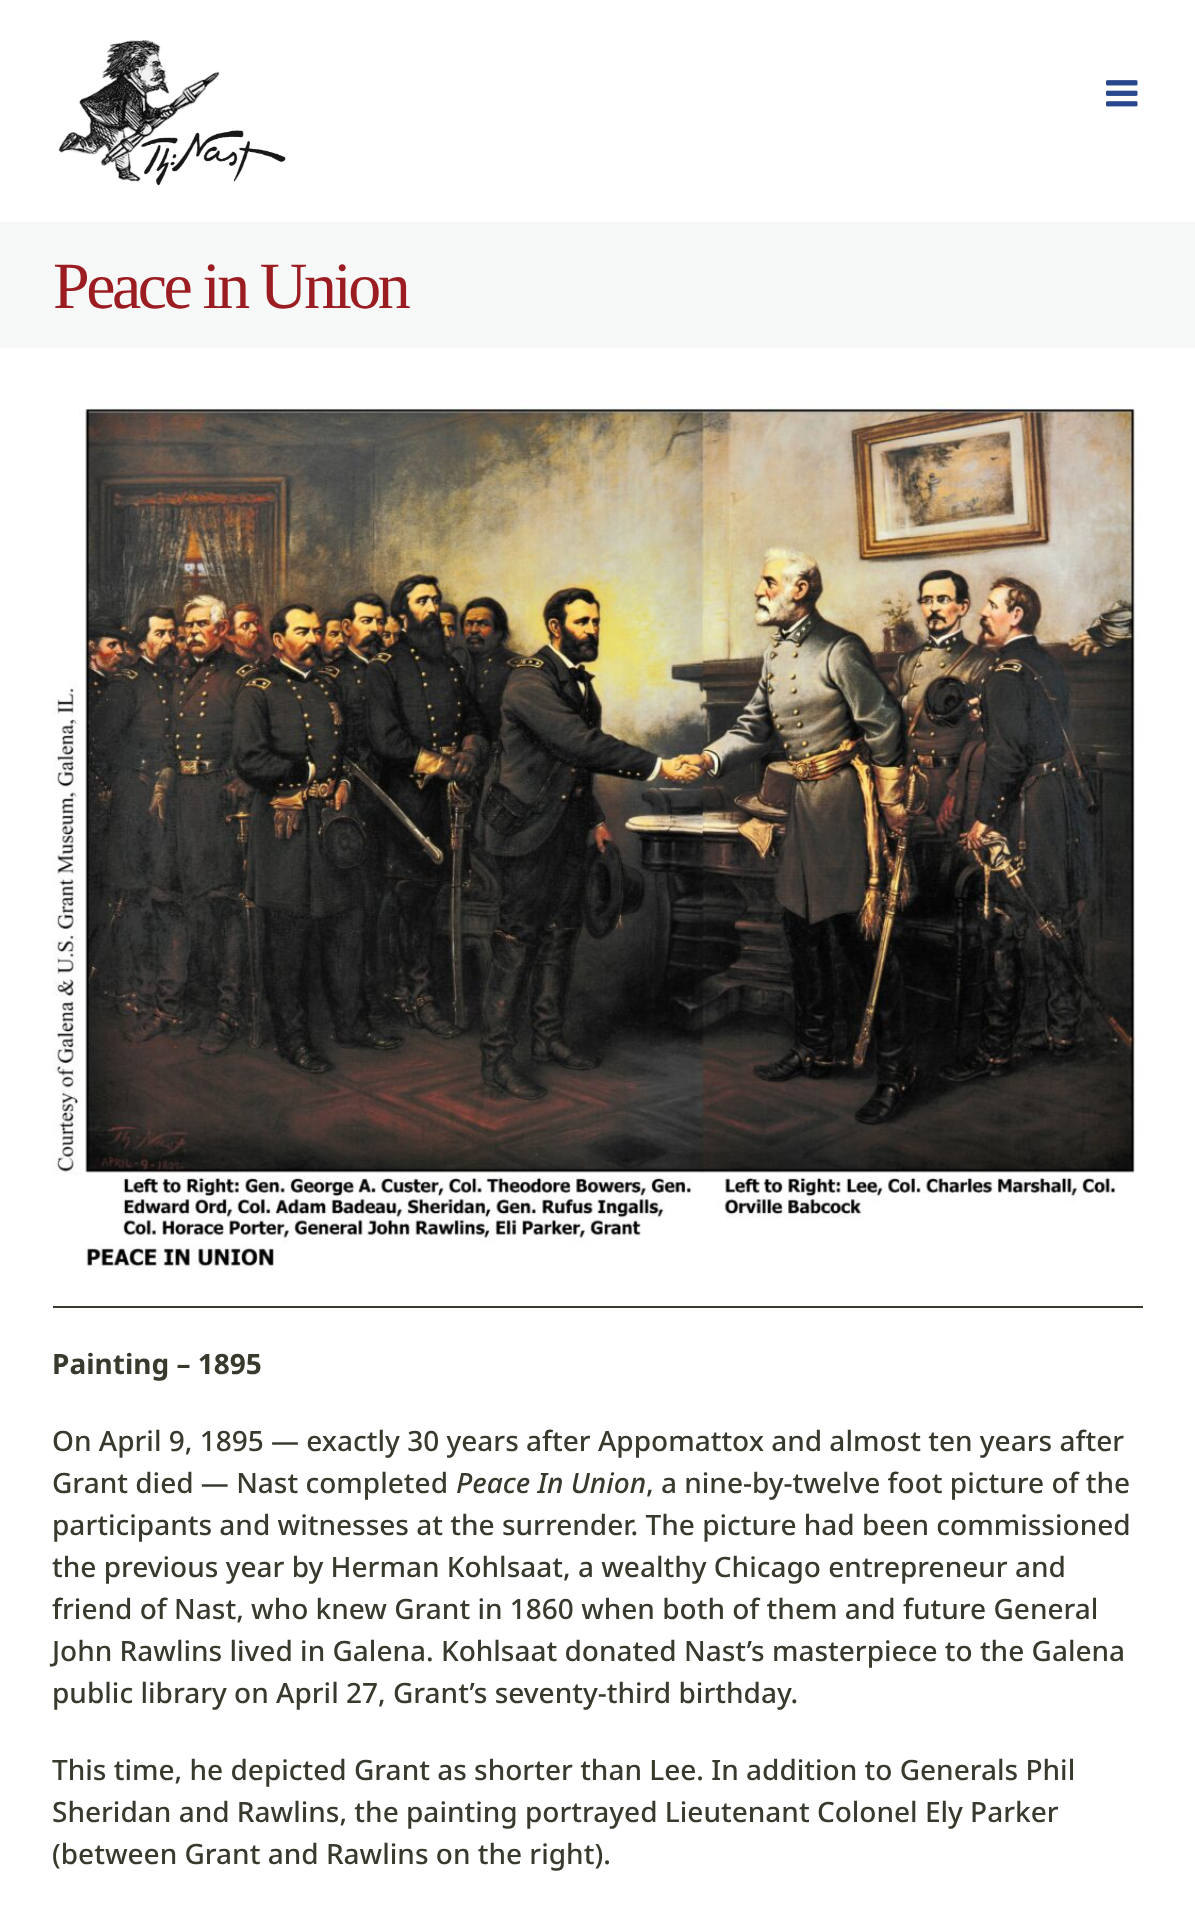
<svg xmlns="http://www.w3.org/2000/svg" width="1195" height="1928">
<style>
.a{font:66px Liberation Serif;letter-spacing:-3.5px;fill:#9b1d22}
.b{font:bold 28px Noto Sans;fill:#383a2e}
.c{font:500 28px Noto Sans;fill:#383a2e}
.d{font:italic 500 28px Noto Sans;fill:#383a2e}
</style>
<rect width="100%" height="100%" fill="#fff"/>
<image href="1.png" x="58" y="40" width="228" height="146"/>
<image href="2.png" x="1106" y="80" width="32" height="27"/>
<path fill="#f7f8f8" d="M0 222h1195v126H0z"/>
<image href="3.png" x="52" y="401" width="1090" height="868"/>
<path fill="#383a2e" d="M53 1306h1090v2H53z"/>
<text class="a" x="53" y="308">Peace in Union</text>
<text class="b" x="52" y="1374">Painting – 1895</text>
<text class="c" x="52" y="1451">On April 9, 1895 — exactly 30 years after Appomattox and almost ten years after</text>
<text class="c" x="52" y="1493">Grant died — Nast completed</text>
<text class="d" x="456" y="1493">Peace In Union</text>
<text class="c" x="646" y="1493">, a nine-by-twelve foot picture of the</text>
<text class="c" x="52" y="1535">participants and witnesses at the surrender. The picture had been commissioned</text>
<text class="c" x="52" y="1577">the previous year by Herman Kohlsaat, a wealthy Chicago entrepreneur and</text>
<text class="c" x="52" y="1619">friend of Nast, who knew Grant in 1860 when both of them and future General</text>
<text class="c" x="52" y="1661">John Rawlins lived in Galena. Kohlsaat donated Nast’s masterpiece to the Galena</text>
<text class="c" x="52" y="1703">public library on April 27, Grant’s seventy-third birthday.</text>
<text class="c" x="52" y="1780">This time, he depicted Grant as shorter than Lee. In addition to Generals Phil</text>
<text class="c" x="52" y="1822">Sheridan and Rawlins, the painting portrayed Lieutenant Colonel Ely Parker</text>
<text class="c" x="52" y="1864">(between Grant and Rawlins on the right).</text>
</svg>
